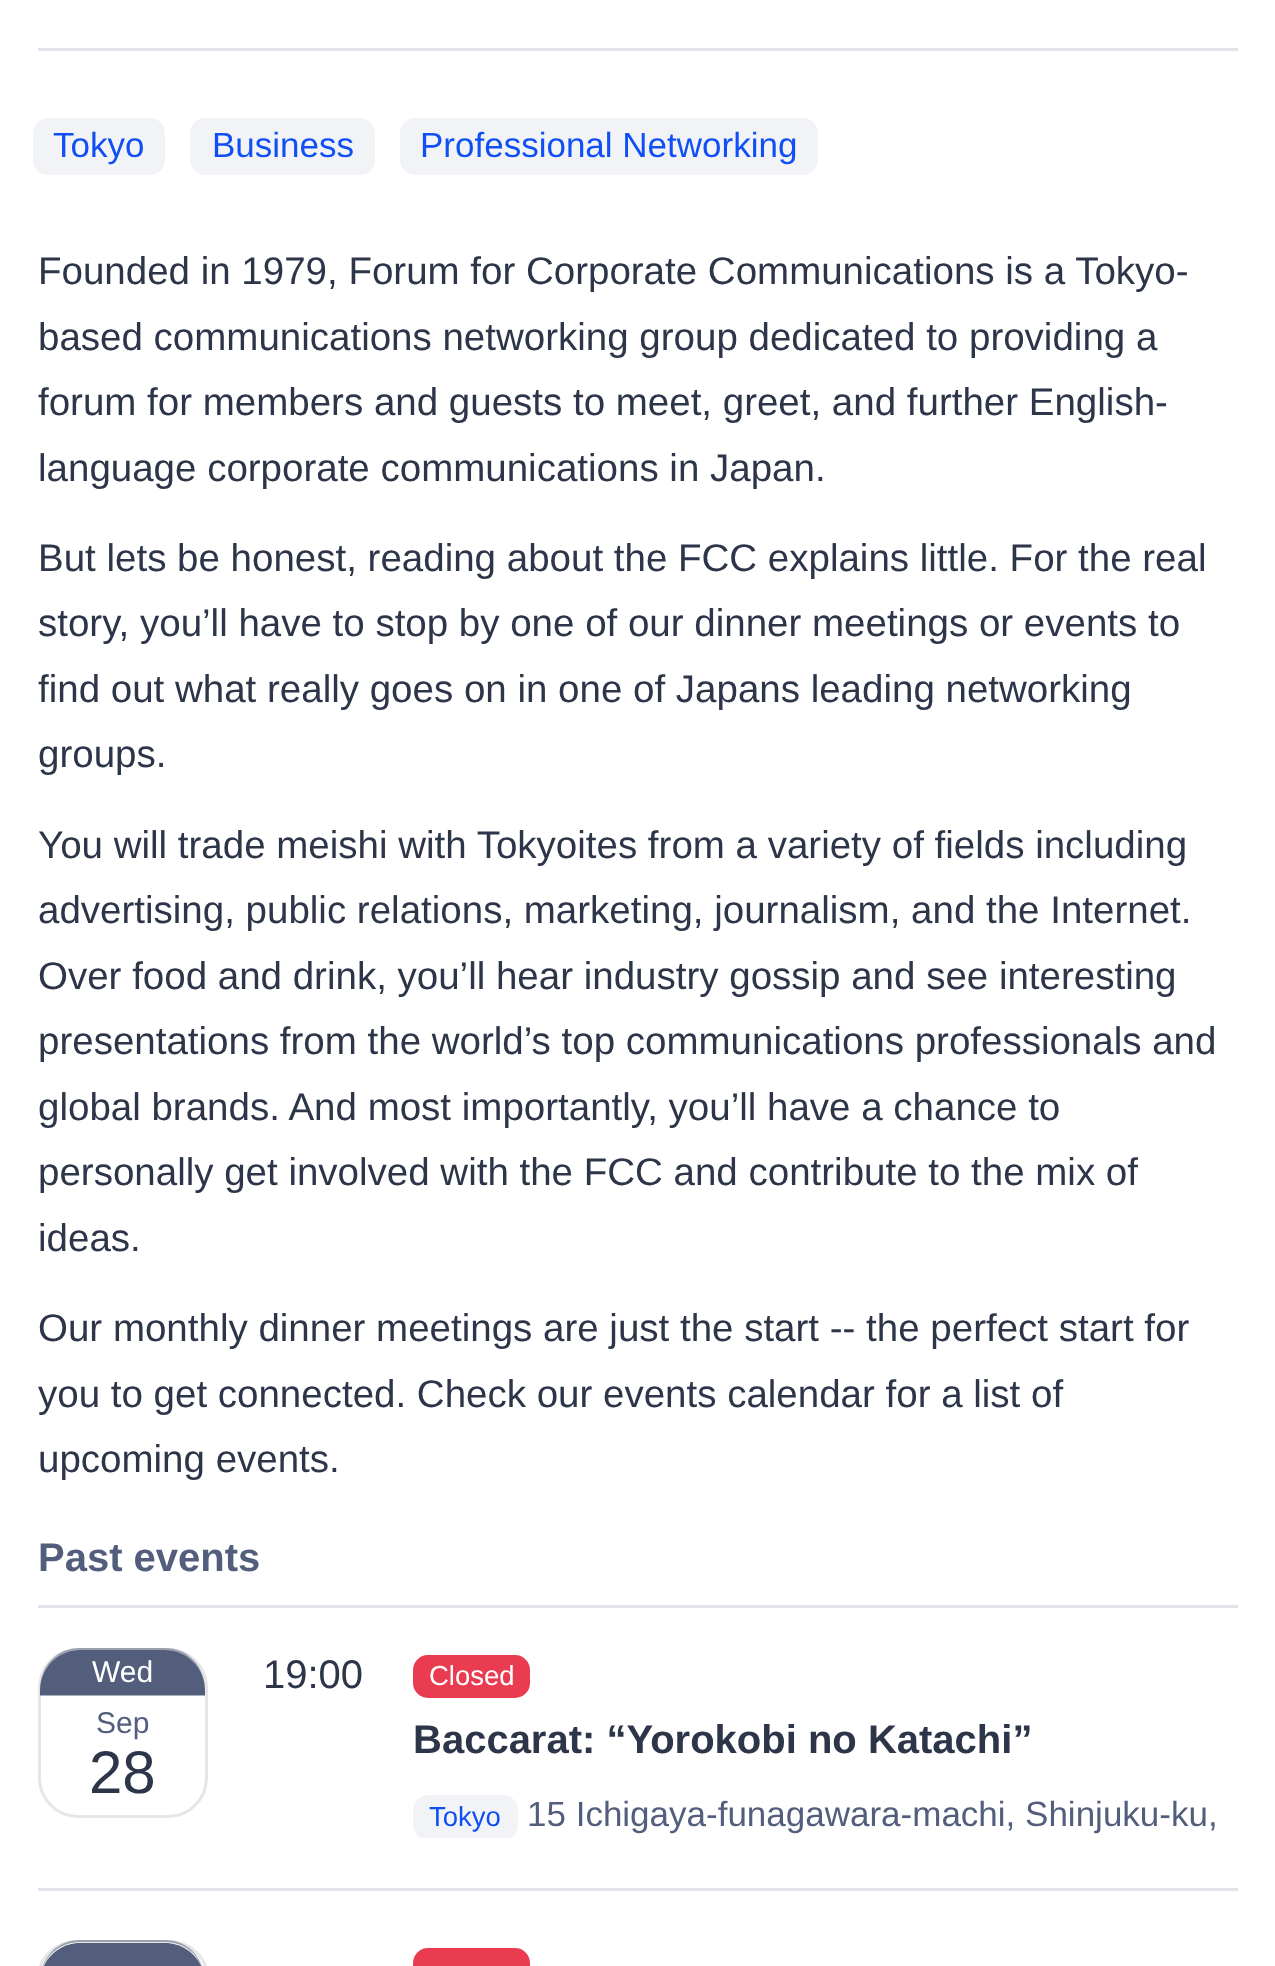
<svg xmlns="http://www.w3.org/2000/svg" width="1275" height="1966">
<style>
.a{font:35px Liberation Sans;fill:#0f4ff4}
.b{font:38.5px Liberation Sans;fill:#2d3549}
.c{font:bold 40px Liberation Sans;fill:#535e7c}
.d{font:30px Liberation Sans;fill:#fff}
.e{font:30px Liberation Sans;fill:#535e7c}
.f{font:60px Liberation Sans;fill:#2d3549}
.g{font:40px Liberation Sans;fill:#2d3549}
.h{font:27.5px Liberation Sans;fill:#fff}
.i{font:bold 40px Liberation Sans;fill:#2d3549}
.j{font:27.5px Liberation Sans;fill:#0f4ff4}
.k{font:35px Liberation Sans;fill:#535e7c}
</style>
<defs>
<clipPath id="clip1"><path d="M413 1788h825v50H413z"/></clipPath>
</defs>
<rect width="100%" height="100%" fill="#fff"/>
<path fill="#e3e5ec" d="M38 48h1200v3H38z"/>
<rect fill="#f2f3f6" x="33" y="118" width="132" height="57" rx="15"/>
<rect fill="#f2f3f6" x="190" y="118" width="185" height="57" rx="15"/>
<rect fill="#f2f3f6" x="400" y="118" width="418" height="57" rx="15"/>
<path fill="#e3e5ec" d="M38 1605h1200v3H38z"/>
<path fill="#e3e5ec" d="M38 1888h1200v3H38z"/>
<rect fill="none" stroke="#e6e6e6" stroke-width="3" x="39.5" y="1649.5" width="167" height="167" rx="38.5"/>
<path fill="#535e7c80" d="M80 1648c-24 0-40 19-40 42c0-22 18-40 40-40h85c22 0 40 18 40 40c0-23-16-42-40-42z"/>
<path fill="#535e7c" d="M80 1650h85c22 0 40 18 40 40v5h-165v-5c0-22 18-40 40-40z"/>
<path fill="#535e7c80" d="M40 1695h165v1H40z"/>
<rect fill="#e93c51" x="413" y="1655" width="117" height="43" rx="15"/>
<g clip-path="url(#clip1)">
<rect fill="#f2f3f6" x="413" y="1795" width="105" height="45" rx="15"/>
</g>
<rect fill="none" stroke="#e6e6e6" stroke-width="3" x="39.5" y="1941.5" width="167" height="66" rx="38.5"/>
<path fill="#535e7c80" d="M80 1940c-24 0-40 19-40 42c0-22 18-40 40-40h85c22 0 40 18 40 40c0-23-16-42-40-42z"/>
<path fill="#535e7c" d="M80 1943h85c22 0 40 18 40 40v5h-165v-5c0-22 18-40 40-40z"/>
<rect fill="#e93c51" x="413" y="1948" width="117" height="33" rx="15"/>
<text class="a" x="53" y="157">Tokyo</text>
<text class="a" x="212" y="157">Business</text>
<text class="a" x="420" y="157">Professional Networking</text>
<text class="b" x="38" y="284">Founded in 1979, Forum for Corporate Communications is a Tokyo-</text>
<text class="b" x="38" y="350">based communications networking group dedicated to providing a</text>
<text class="b" x="38" y="415">forum for members and guests to meet, greet, and further English-</text>
<text class="b" x="38" y="481">language corporate communications in Japan.</text>
<text class="b" x="38" y="571">But lets be honest, reading about the FCC explains little. For the real</text>
<text class="b" x="38" y="636">story, you’ll have to stop by one of our dinner meetings or events to</text>
<text class="b" x="38" y="702">find out what really goes on in one of Japans leading networking</text>
<text class="b" x="38" y="767">groups.</text>
<text class="b" x="38" y="858">You will trade meishi with Tokyoites from a variety of fields including</text>
<text class="b" x="38" y="923">advertising, public relations, marketing, journalism, and the Internet.</text>
<text class="b" x="38" y="989">Over food and drink, you’ll hear industry gossip and see interesting</text>
<text class="b" x="38" y="1054">presentations from the world’s top communications professionals and</text>
<text class="b" x="38" y="1120">global brands. And most importantly, you’ll have a chance to</text>
<text class="b" x="38" y="1185">personally get involved with the FCC and contribute to the mix of</text>
<text class="b" x="38" y="1251">ideas.</text>
<text class="b" x="38" y="1341">Our monthly dinner meetings are just the start -- the perfect start for</text>
<text class="b" x="38" y="1407">you to get connected. Check our events calendar for a list of</text>
<text class="b" x="38" y="1472">upcoming events.</text>
<text class="c" x="38" y="1571">Past events</text>
<text class="d" x="92" y="1682">Wed</text>
<text class="e" x="96" y="1733">Sep</text>
<text class="f" x="89" y="1793">28</text>
<text class="g" x="263" y="1688">19:00</text>
<text class="h" x="429" y="1685">Closed</text>
<text class="i" x="413" y="1753">Baccarat: “Yorokobi no Katachi”</text>
<text class="j" x="429" y="1826">Tokyo</text>
<text class="k" x="527" y="1826">15 Ichigaya-funagawara-machi, Shinjuku-ku,</text>
</svg>
